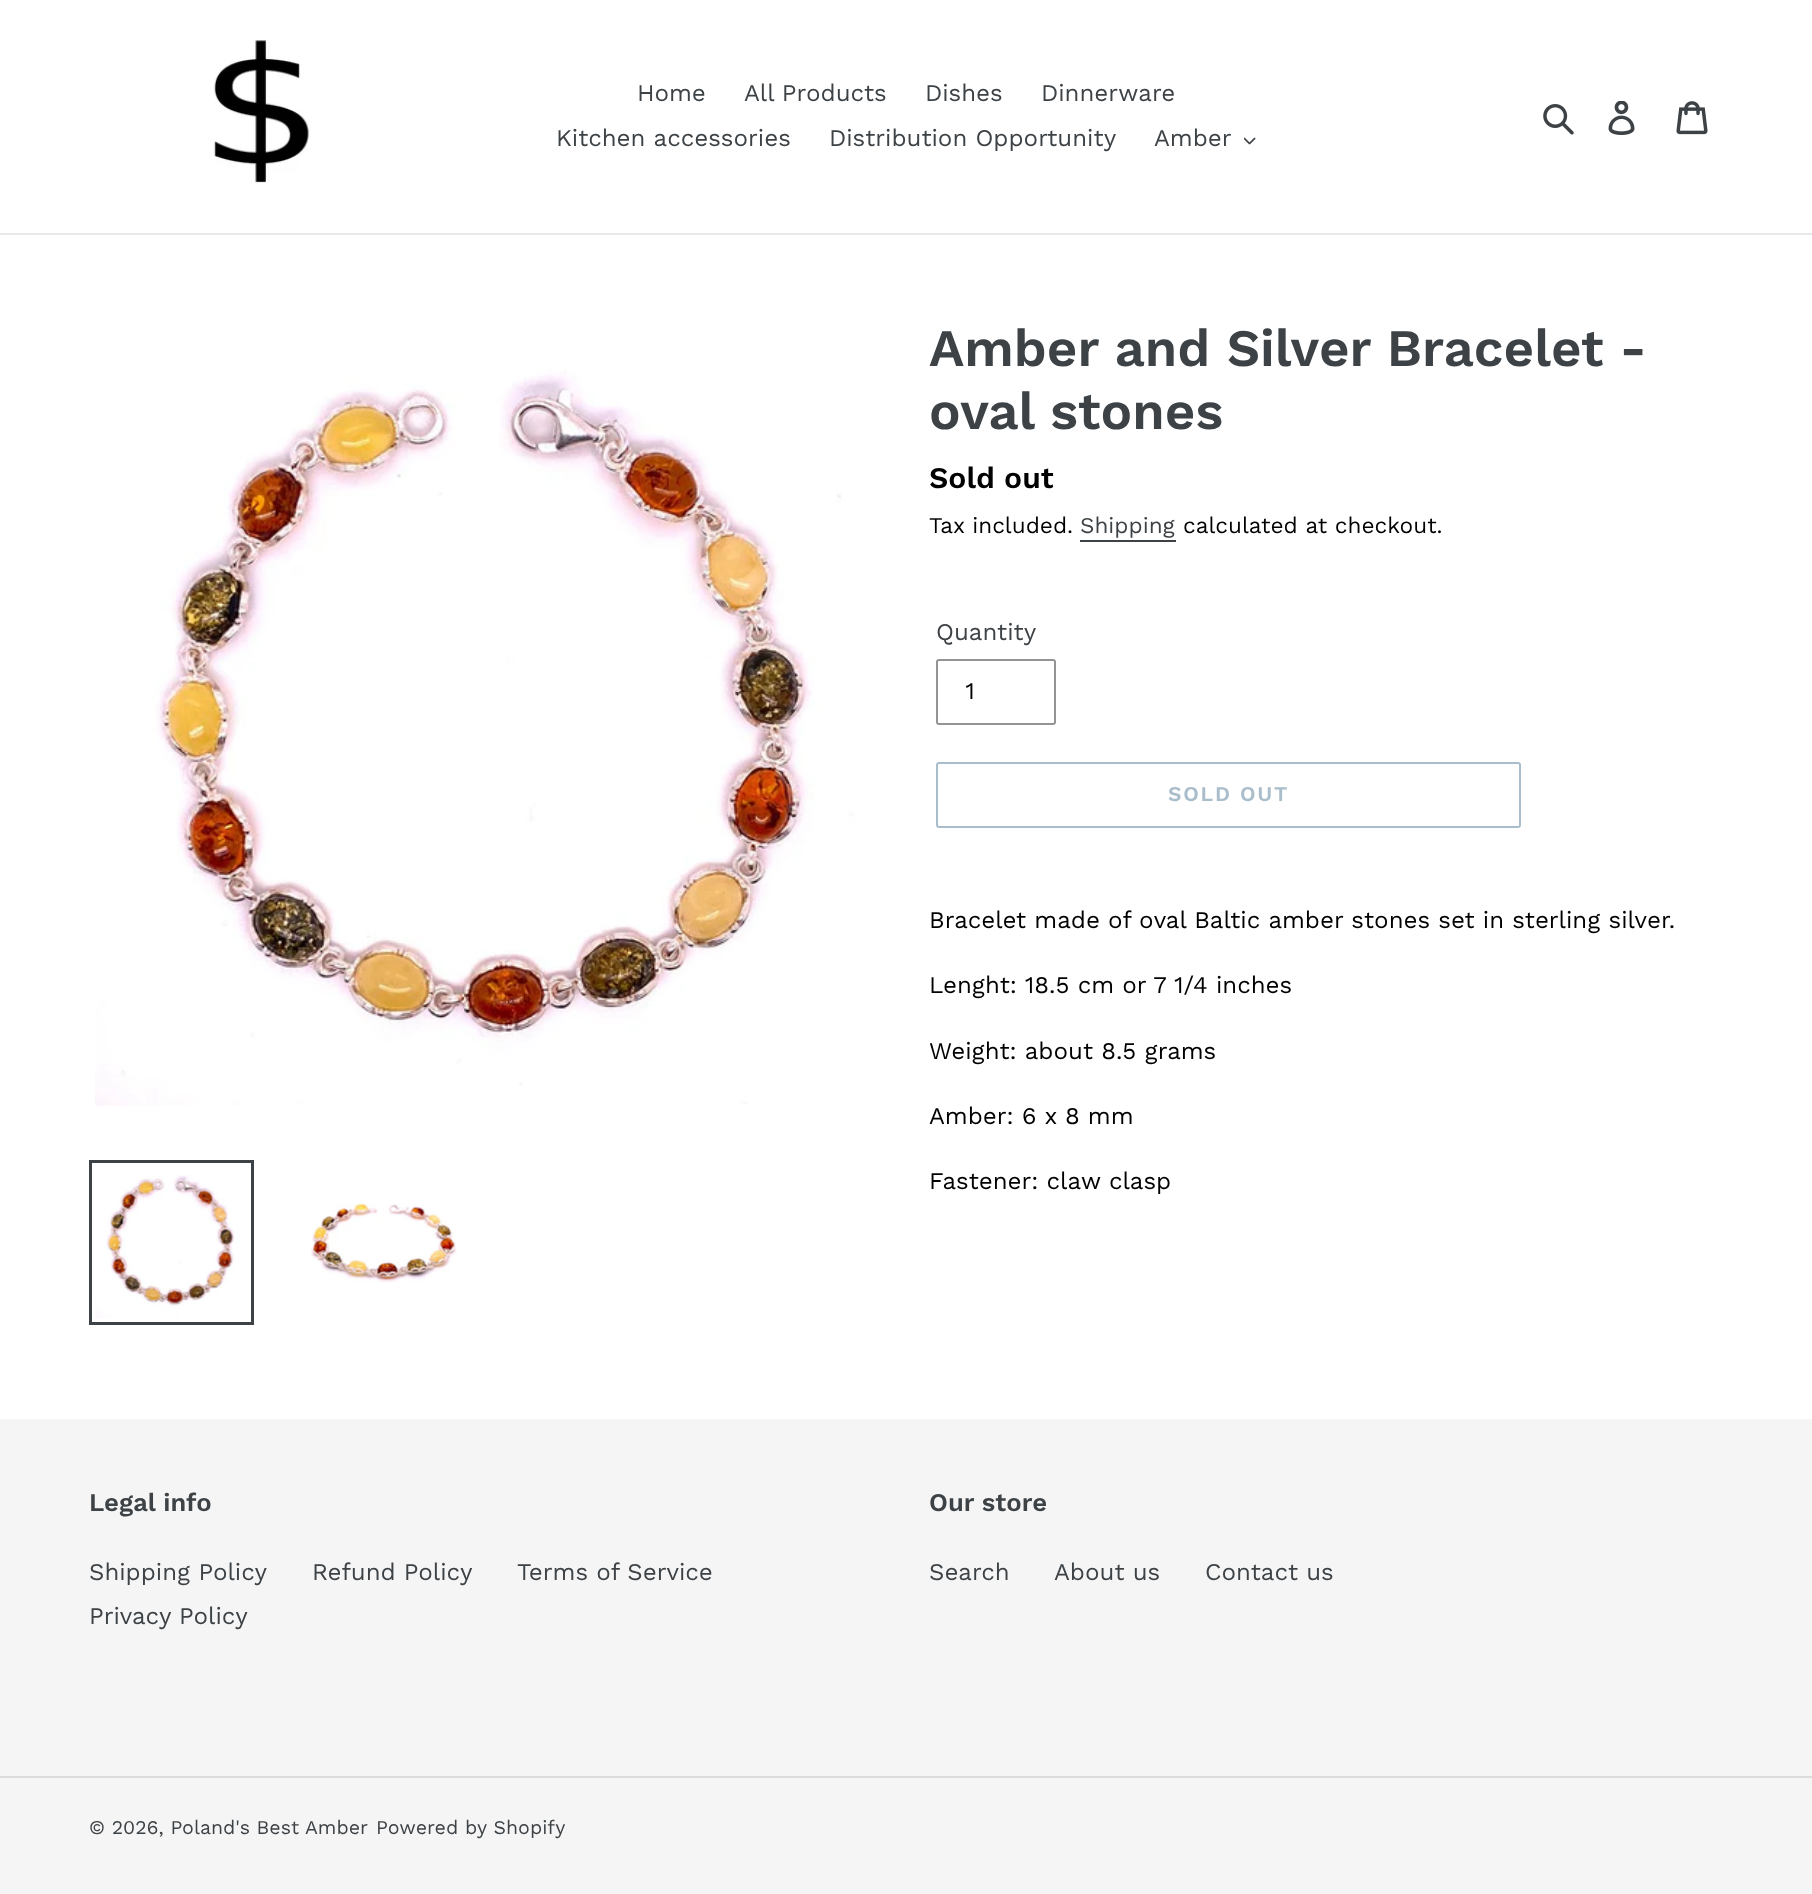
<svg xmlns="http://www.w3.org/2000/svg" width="1812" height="1894">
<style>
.a{font:24px Work Sans;fill:#3d4246}
.b{font:600 52.5px Work Sans;fill:#3d4246}
.c{font:600 30px Work Sans;fill:#000}
.d{font:22.5px Work Sans;fill:#000}
.e{font:22.5px Work Sans;fill:#3d4246}
.f{font:24px Work Sans;fill:#000}
.g{font:600 21px Work Sans;letter-spacing:1.75px;fill:#aabdcb}
.h{font:600 25.5px Work Sans;fill:#3d4246}
.i{font:19.5px Work Sans;fill:#3d4246}
</style>
<rect width="100%" height="100%" fill="#fff"/>
<path fill="#e8e9eb" d="M0 233h1812v2H0z"/>
<image href="1.png" x="213" y="40" width="98" height="144"/>
<image href="2.png" x="1244" y="137" width="12" height="8"/>
<image href="3.png" x="1543" y="104" width="31" height="31"/>
<image href="4.png" x="1608" y="101" width="27" height="34"/>
<image href="5.png" x="1676" y="101" width="32" height="34"/>
<image href="6.png" x="95" y="369" width="759" height="737"/>
<path fill="none" stroke="#3d4246" stroke-width="3" d="M90.5 1161.5h162v162H90.5z"/>
<image href="7.png" x="95" y="1175" width="140" height="143"/>
<image href="8.png" x="311" y="1203" width="146" height="80"/>
<path fill="#3d4246" d="M1080 540h96v2H1080z"/>
<rect fill="none" stroke="#949494" stroke-width="2" x="937" y="660" width="118" height="64" rx="2"/>
<rect fill="none" stroke="#aabdcb" stroke-width="2" x="937" y="763" width="583" height="64" rx="2"/>
<path fill="#f5f5f5" d="M0 1419h1812v475H0z"/>
<path fill="#dcdcdc" d="M0 1776h1812v2H0z"/>
<text class="a" x="637" y="101">Home</text>
<text class="a" x="744" y="101">All Products</text>
<text class="a" x="925" y="101">Dishes</text>
<text class="a" x="1041" y="101">Dinnerware</text>
<text class="a" x="556" y="146">Kitchen accessories</text>
<text class="a" x="829" y="146">Distribution Opportunity</text>
<text class="a" x="1154" y="146">Amber</text>
<text class="b" x="929" y="366">Amber and Silver Bracelet -</text>
<text class="b" x="929" y="429">oval stones</text>
<text class="c" x="929" y="488">Sold out</text>
<text class="d" x="929" y="533">Tax included.</text>
<text class="e" x="1080" y="533">Shipping</text>
<text class="d" x="1183" y="533">calculated at checkout.</text>
<text class="a" x="936" y="640">Quantity</text>
<text class="f" x="965" y="699">1</text>
<text class="g" x="1168" y="801">SOLD OUT</text>
<text class="f" x="929" y="928">Bracelet made of oval Baltic amber stones set in sterling silver.</text>
<text class="f" x="929" y="993">Lenght: 18.5 cm or 7 1/4 inches</text>
<text class="f" x="929" y="1059">Weight: about 8.5 grams</text>
<text class="f" x="929" y="1124">Amber: 6 x 8 mm</text>
<text class="f" x="929" y="1189">Fastener: claw clasp</text>
<text class="h" x="89" y="1511">Legal info</text>
<text class="a" x="89" y="1580">Shipping Policy</text>
<text class="a" x="312" y="1580">Refund Policy</text>
<text class="a" x="517" y="1580">Terms of Service</text>
<text class="a" x="89" y="1624">Privacy Policy</text>
<text class="h" x="929" y="1511">Our store</text>
<text class="a" x="929" y="1580">Search</text>
<text class="a" x="1054" y="1580">About us</text>
<text class="a" x="1205" y="1580">Contact us</text>
<text class="i" x="89" y="1834">© 2026, Poland's Best Amber</text>
<text class="i" x="376" y="1834">Powered by Shopify</text>
</svg>
